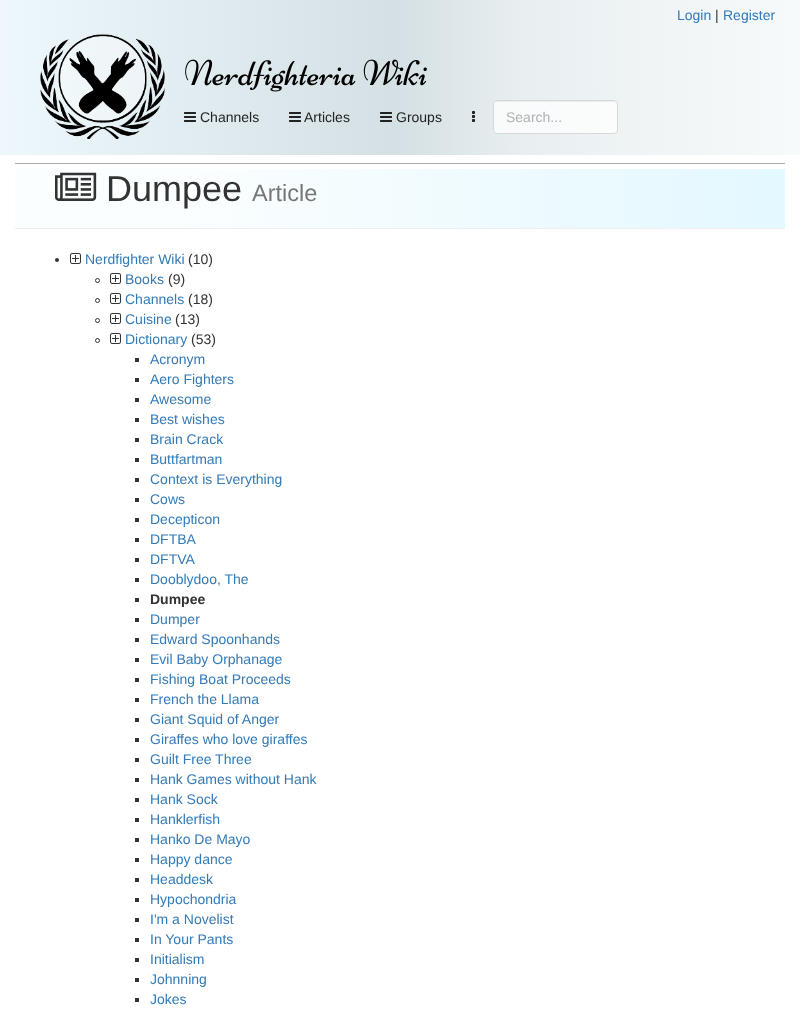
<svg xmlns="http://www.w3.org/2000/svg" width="800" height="1015">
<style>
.a{font:14px Liberation Sans;fill:#337ab7}
.b{font:14px Liberation Sans;fill:#333}
.c{font:14px Liberation Sans;fill:#212324}
.d{font:14px Liberation Sans;fill:#b1b1b2}
.e{font:36px Liberation Sans;fill:#333}
.f{font:23.5px Liberation Sans;fill:#777}
.g{font:bold 14px Liberation Sans;fill:#333}
</style>
<defs>
<linearGradient id="g1" gradientUnits="userSpaceOnUse" x1="0" y1="78" x2="800" y2="77"><stop offset="0" stop-color="#eef8fc"/><stop offset="0.49" stop-color="#d4e0e4"/><stop offset="0.66" stop-color="#e9eff1"/><stop offset="1" stop-color="#f7fafb"/></linearGradient>
<linearGradient id="g2" gradientUnits="userSpaceOnUse" x1="15" y1="199" x2="785" y2="198"><stop offset="0.21" stop-color="#fbfeff"/><stop offset="1" stop-color="#e3f8ff"/></linearGradient>
</defs>
<rect width="100%" height="100%" fill="#fff"/>
<path fill="url(#g1)" d="M0 0h800v155H0z"/>
<image href="1.png" x="40" y="34" width="125" height="105"/>
<image href="2.png" x="185" y="59" width="242" height="33"/>
<image href="3.png" x="184" y="112" width="12" height="10"/>
<image href="4.png" x="289" y="112" width="12" height="10"/>
<image href="5.png" x="380" y="112" width="12" height="10"/>
<image href="6.png" x="472" y="111" width="3" height="11"/>
<rect fill="#ffffffbf" x="493" y="100" width="125" height="34" rx="4"/>
<path fill="#eceded" d="M497 102h117c2 0 3 1 3 3c0-2-1-4-3-4h-98c0 0-22-5-22 4c0-2 1-3 3-3z"/>
<rect fill="none" stroke="#ccccccbf" x="493.5" y="100.5" width="124" height="33" rx="3.5"/>
<path fill="#aaa" d="M15 163h770v1H15z"/>
<path fill="url(#g2)" d="M15 169h770v59H15z"/>
<path fill="#eee" d="M15 228h770v1H15z"/>
<image href="7.png" x="55" y="172" width="42" height="29"/>
<circle fill="#333" cx="57" cy="260" r="2"/>
<image href="8.png" x="70" y="253" width="11" height="11"/>
<circle fill="none" stroke="#333" cx="97.5" cy="280.5" r="2"/>
<image href="8.png" x="110" y="273" width="11" height="11"/>
<circle fill="none" stroke="#333" cx="97.5" cy="300.5" r="2"/>
<image href="8.png" x="110" y="293" width="11" height="11"/>
<circle fill="none" stroke="#333" cx="97.5" cy="320.5" r="2"/>
<image href="8.png" x="110" y="313" width="11" height="11"/>
<circle fill="none" stroke="#333" cx="97.5" cy="340.5" r="2"/>
<image href="8.png" x="110" y="333" width="11" height="11"/>
<path fill="#333" d="M135 358h4v4H135z"/>
<path fill="#333" d="M135 378h4v4H135z"/>
<path fill="#333" d="M135 398h4v4H135z"/>
<path fill="#333" d="M135 418h4v4H135z"/>
<path fill="#333" d="M135 438h4v4H135z"/>
<path fill="#333" d="M135 458h4v4H135z"/>
<path fill="#333" d="M135 478h4v4H135z"/>
<path fill="#333" d="M135 498h4v4H135z"/>
<path fill="#333" d="M135 518h4v4H135z"/>
<path fill="#333" d="M135 538h4v4H135z"/>
<path fill="#333" d="M135 558h4v4H135z"/>
<path fill="#333" d="M135 578h4v4H135z"/>
<path fill="#333" d="M135 598h4v4H135z"/>
<path fill="#333" d="M135 618h4v4H135z"/>
<path fill="#333" d="M135 638h4v4H135z"/>
<path fill="#333" d="M135 658h4v4H135z"/>
<path fill="#333" d="M135 678h4v4H135z"/>
<path fill="#333" d="M135 698h4v4H135z"/>
<path fill="#333" d="M135 718h4v4H135z"/>
<path fill="#333" d="M135 738h4v4H135z"/>
<path fill="#333" d="M135 758h4v4H135z"/>
<path fill="#333" d="M135 778h4v4H135z"/>
<path fill="#333" d="M135 798h4v4H135z"/>
<path fill="#333" d="M135 818h4v4H135z"/>
<path fill="#333" d="M135 838h4v4H135z"/>
<path fill="#333" d="M135 858h4v4H135z"/>
<path fill="#333" d="M135 878h4v4H135z"/>
<path fill="#333" d="M135 898h4v4H135z"/>
<path fill="#333" d="M135 918h4v4H135z"/>
<path fill="#333" d="M135 938h4v4H135z"/>
<path fill="#333" d="M135 958h4v4H135z"/>
<path fill="#333" d="M135 978h4v4H135z"/>
<path fill="#333" d="M135 998h4v4H135z"/>
<text class="a" x="677" y="20">Login</text>
<text class="b" x="715" y="20">|</text>
<text class="a" x="723" y="20">Register</text>
<text class="c" x="200" y="122">Channels</text>
<text class="c" x="304" y="122">Articles</text>
<text class="c" x="396" y="122">Groups</text>
<text class="d" x="506" y="122">Search...</text>
<text class="e" x="106" y="201">Dumpee</text>
<text class="f" x="252" y="201">Article</text>
<text class="a" x="85" y="264">Nerdfighter Wiki</text>
<text class="b" x="188" y="264">(10)</text>
<text class="a" x="125" y="284">Books</text>
<text class="b" x="168" y="284">(9)</text>
<text class="a" x="125" y="304">Channels</text>
<text class="b" x="188" y="304">(18)</text>
<text class="a" x="125" y="324">Cuisine</text>
<text class="b" x="175" y="324">(13)</text>
<text class="a" x="125" y="344">Dictionary</text>
<text class="b" x="191" y="344">(53)</text>
<text class="a" x="150" y="364">Acronym</text>
<text class="a" x="150" y="384">Aero Fighters</text>
<text class="a" x="150" y="404">Awesome</text>
<text class="a" x="150" y="424">Best wishes</text>
<text class="a" x="150" y="444">Brain Crack</text>
<text class="a" x="150" y="464">Buttfartman</text>
<text class="a" x="150" y="484">Context is Everything</text>
<text class="a" x="150" y="504">Cows</text>
<text class="a" x="150" y="524">Decepticon</text>
<text class="a" x="150" y="544">DFTBA</text>
<text class="a" x="150" y="564">DFTVA</text>
<text class="a" x="150" y="584">Dooblydoo, The</text>
<text class="g" x="150" y="604">Dumpee</text>
<text class="a" x="150" y="624">Dumper</text>
<text class="a" x="150" y="644">Edward Spoonhands</text>
<text class="a" x="150" y="664">Evil Baby Orphanage</text>
<text class="a" x="150" y="684">Fishing Boat Proceeds</text>
<text class="a" x="150" y="704">French the Llama</text>
<text class="a" x="150" y="724">Giant Squid of Anger</text>
<text class="a" x="150" y="744">Giraffes who love giraffes</text>
<text class="a" x="150" y="764">Guilt Free Three</text>
<text class="a" x="150" y="784">Hank Games without Hank</text>
<text class="a" x="150" y="804">Hank Sock</text>
<text class="a" x="150" y="824">Hanklerfish</text>
<text class="a" x="150" y="844">Hanko De Mayo</text>
<text class="a" x="150" y="864">Happy dance</text>
<text class="a" x="150" y="884">Headdesk</text>
<text class="a" x="150" y="904">Hypochondria</text>
<text class="a" x="150" y="924">I'm a Novelist</text>
<text class="a" x="150" y="944">In Your Pants</text>
<text class="a" x="150" y="964">Initialism</text>
<text class="a" x="150" y="984">Johnning</text>
<text class="a" x="150" y="1004">Jokes</text>
</svg>
